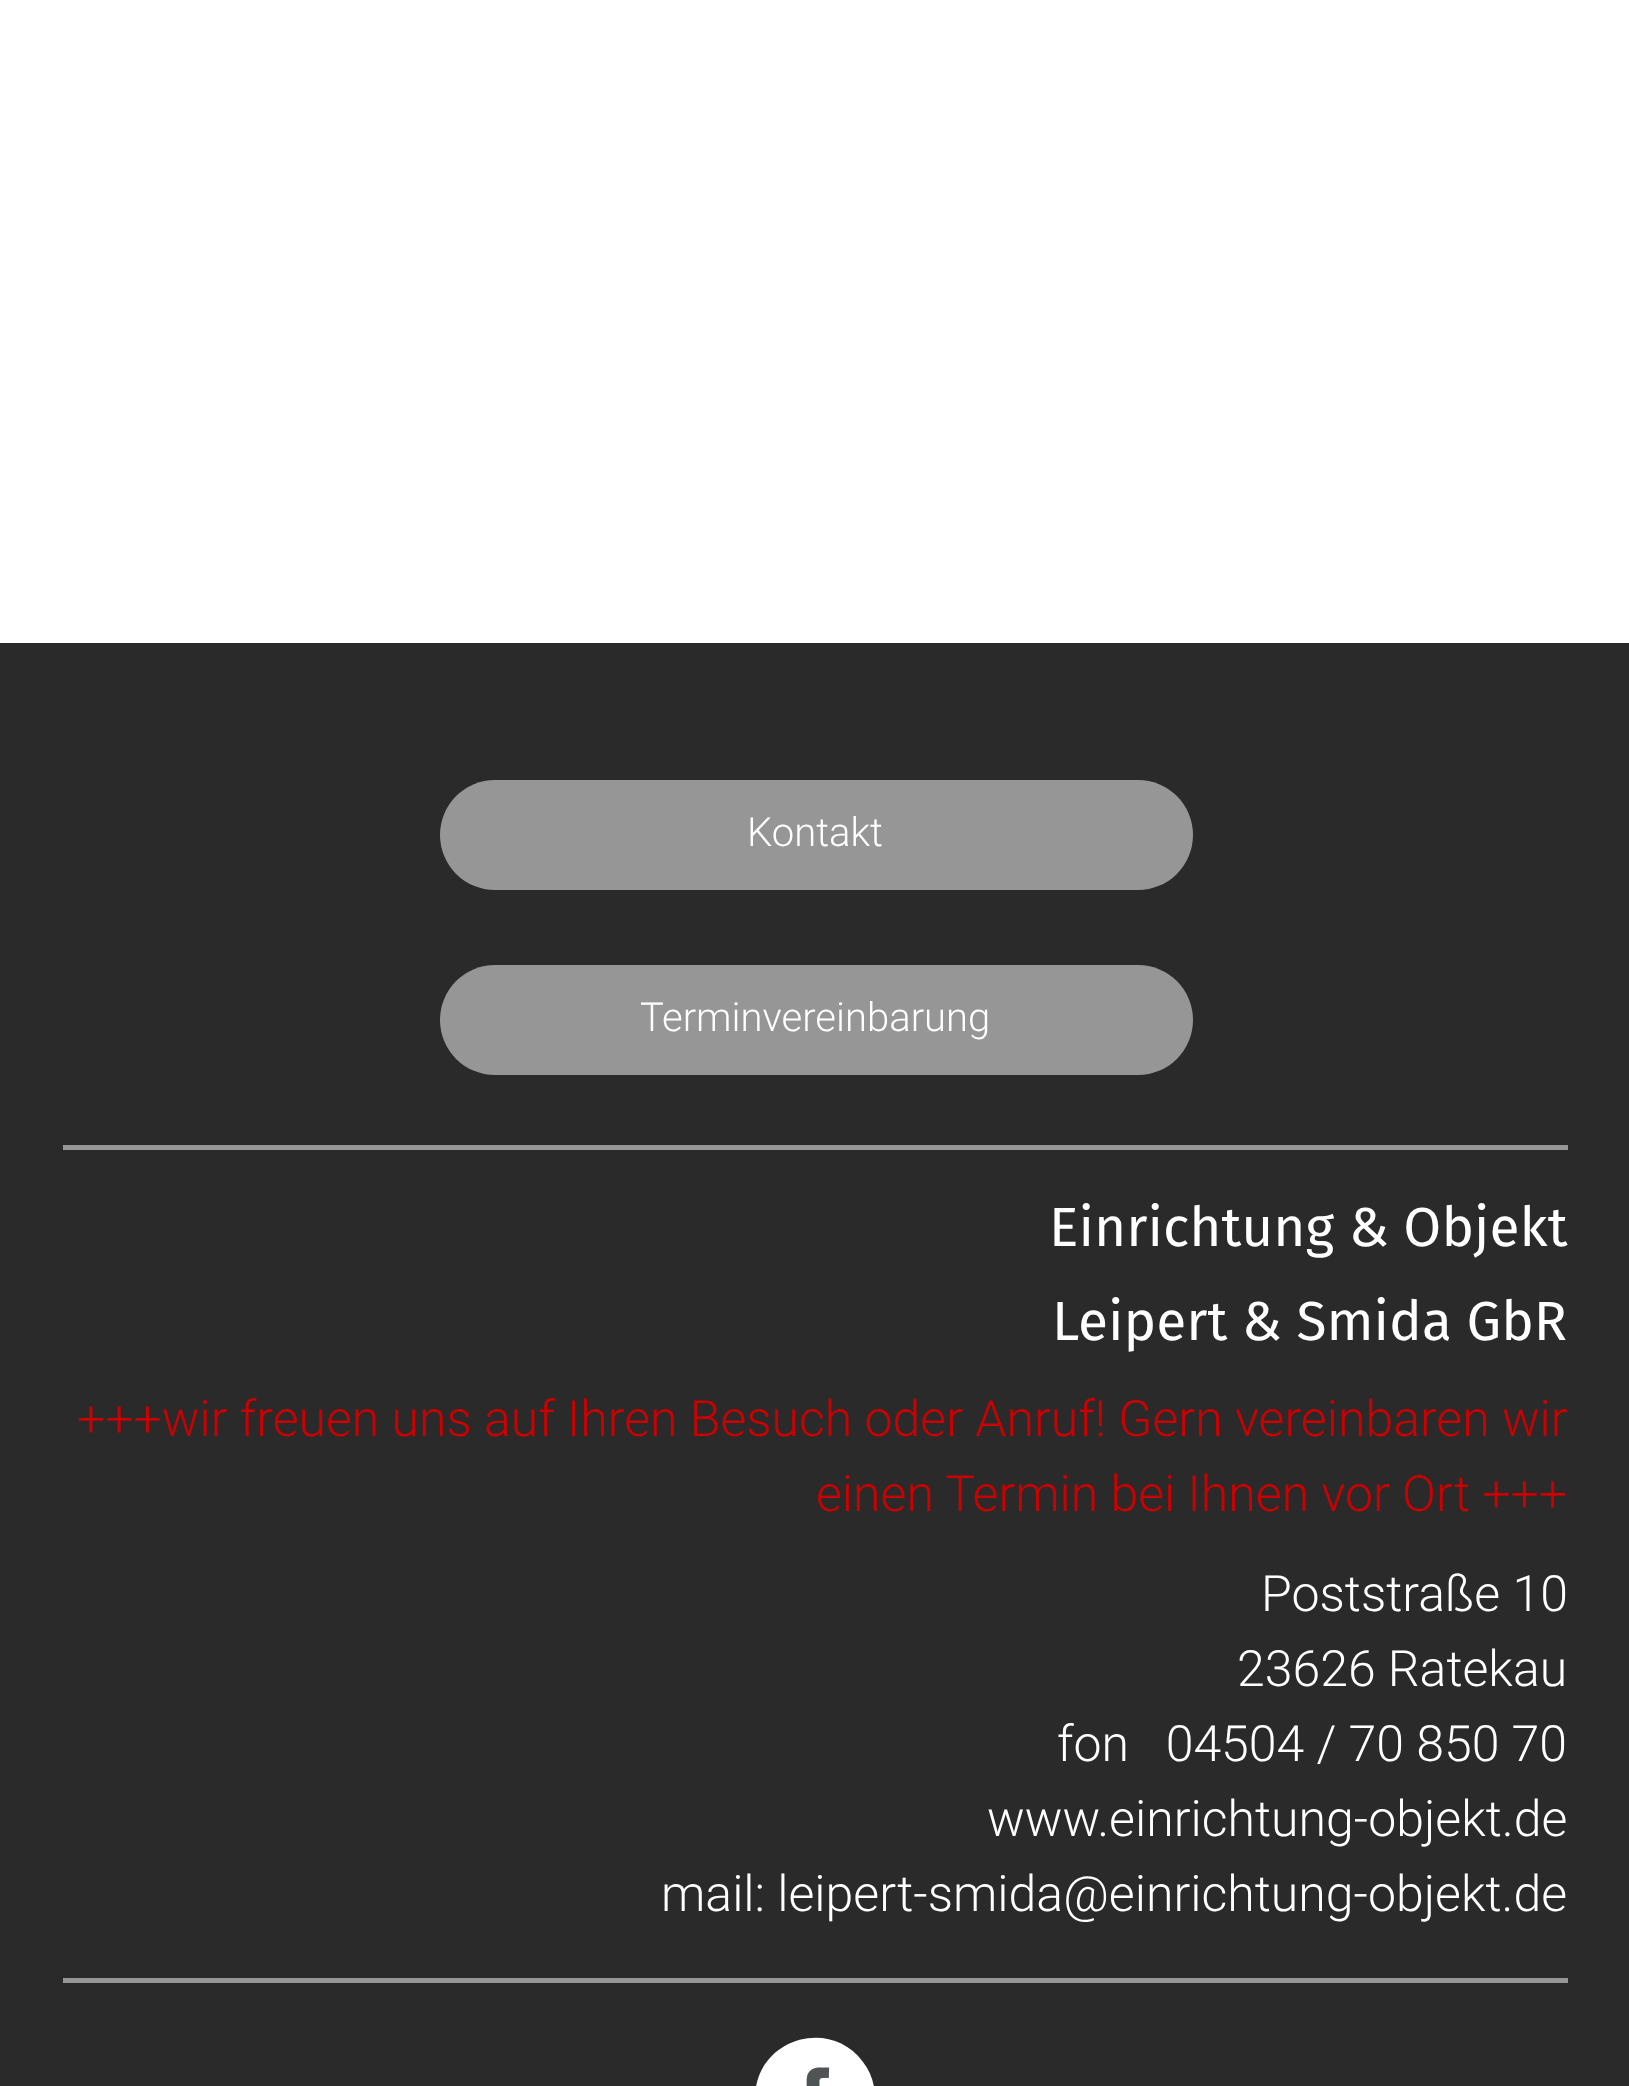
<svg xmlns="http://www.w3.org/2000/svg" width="1629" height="2086">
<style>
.a{font:300 40px Roboto;fill:#fff}
.b{font:55px Fira Sans;fill:#fff}
.c{font:300 50px Roboto;fill:#c00}
.d{font:300 50px Roboto;fill:#fff}
</style>
<rect width="100%" height="100%" fill="#fff"/>
<path fill="#2a2a2a" d="M0 643h1629v1443H0z"/>
<rect fill="#969696" x="440" y="780" width="753" height="110" rx="55"/>
<rect fill="#969696" x="440" y="965" width="753" height="110" rx="55"/>
<path fill="#969696" d="M63 1145h1505v5H63z"/>
<path fill="#969696" d="M63 1978h1505v5H63z"/>
<path fill="#fff" d="M755 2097c0 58 74 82 108 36c8-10 12-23 12-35c0-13-4-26-12-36c-34-46-108-22-108 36z"/>
<image href="1.png" x="806" y="2067" width="24" height="19"/>
<text class="a" x="747" y="846">Kontakt</text>
<text class="a" x="640" y="1031">Terminvereinbarung</text>
<text class="b" x="1049" y="1246">Einrichtung &amp; Objekt</text>
<text class="b" x="1052" y="1340">Leipert &amp; Smida GbR</text>
<text class="c" x="77" y="1436">+++wir freuen uns auf Ihren Besuch oder Anruf! Gern vereinbaren wir</text>
<text class="c" x="816" y="1511">einen Termin bei Ihnen vor Ort +++</text>
<text class="d" x="1261" y="1611">Poststraße 10</text>
<text class="d" x="1237" y="1686">23626 Ratekau</text>
<text class="d" xml:space="preserve" x="1057" y="1761">fon   04504 / 70 850 70</text>
<text class="d" x="987" y="1836">www.einrichtung-objekt.de</text>
<text class="d" x="661" y="1911">mail: leipert-smida@einrichtung-objekt.de</text>
</svg>
